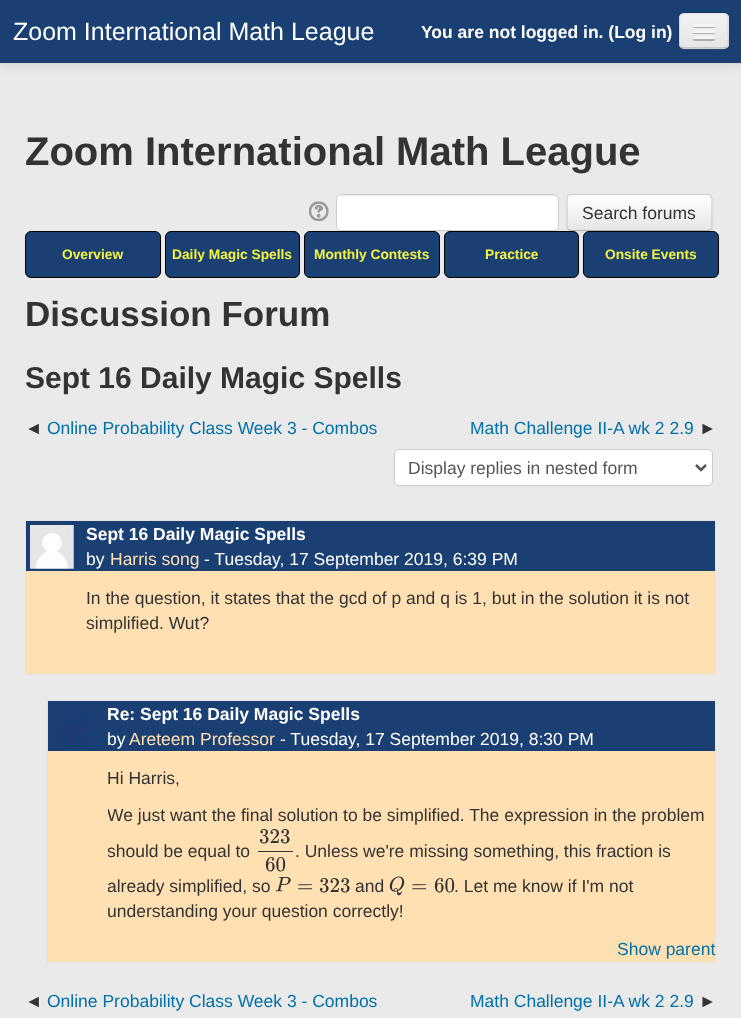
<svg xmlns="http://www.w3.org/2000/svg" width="741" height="1018">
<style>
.a{font:25px Liberation Sans;fill:#fff}
.b{font:bold 17.5px Liberation Sans;fill:#fff}
.c{font:bold 40px Liberation Sans;fill:#333}
.d{font:17.5px Liberation Sans;fill:#333}
.e{font:bold 13.75px Liberation Sans;fill:#f4f442}
.f{font:bold 35px Liberation Sans;fill:#333}
.g{font:bold 30px Liberation Sans;fill:#333}
.h{font:17.5px Liberation Sans;fill:#0070a8}
.i{font:17.5px Liberation Sans;fill:#555}
.j{font:17.5px Liberation Sans;fill:#fff}
.k{font:17.5px Liberation Sans;fill:#ffe0b3}
.l{font:21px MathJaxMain;fill:#333}
</style>
<defs>
<clipPath id="clip1"><rect x="679" y="13" width="50" height="36" rx="5"/></clipPath>
<linearGradient id="g1" gradientUnits="userSpaceOnUse" x1="704" y1="14" x2="704" y2="48"><stop offset="0" stop-color="#f2f2f2"/><stop offset="1" stop-color="#e5e5e5"/></linearGradient>
<clipPath id="clip2"><rect x="566" y="194" width="147" height="37" rx="5"/></clipPath>
<linearGradient id="g2" gradientUnits="userSpaceOnUse" x1="639" y1="195" x2="639" y2="230"><stop offset="0" stop-color="#fff"/><stop offset="1" stop-color="#e6e6e6"/></linearGradient>
<clipPath id="clip3"><path d="M108 765h607v170H108z"/></clipPath>
</defs>
<rect width="100%" height="100%" fill="#eaeaea"/>
<path fill="#0000001a" filter="blur(6px)" d="M0 1h741v64H0z"/>
<path fill="#1a3f73" d="M0 0h741v63H0z"/>
<path fill="#d4d4d4" d="M0 63h741v1H0z"/>
<path fill="#2b4d7e" d="M679 45c0 3 2 5 5 5h27c17 0 18 3 18-14v-19v27c0 3-2 5-5 5h-40c-2 0-4-2-5-4z"/>
<rect fill="#ededed" x="679" y="13" width="50" height="36" rx="5"/>
<g clip-path="url(#clip1)">
<path fill="url(#g1)" d="M679 14h50v34H679z"/>
</g>
<path fill="none" stroke="#00000040" stroke-width="1.2" d="M727 47c-1 .5-2 1-3 1h-40c-1.5 0-2.5-.5-3.5-1"/>
<path fill="none" stroke="#0000001a" stroke-width="1.2" d="M680.5 47c-2.5-3-1-13-1-16.5v-8.5c0-3.5-1-8 3.5-9h41.5c4.5 1 3.5 5.5 3.5 9v8.5c0 3.5 1.5 13.5-1 16.5"/>
<path fill="#b2b2b2" d="M693 26c-.5 2.5 4 2 4.5 2h13c.5 0 6 .5 4.5-2.5l-1 .5z"/>
<rect fill="#f5f5f5" x="693" y="24" width="22" height="3" rx="1.5"/>
<path fill="#b0b0b0" d="M693 32.5c-.5 2 3.5 1.5 4.5 1.5h13c.5 0 5.5 .5 4.5-2l-1 .5c-2 0-20.5 0-21 0z"/>
<rect fill="#f5f5f5" x="693" y="30" width="22" height="3" rx="1.5"/>
<path fill="#aeaeae" d="M693.5 38.5c-2 3 3.5 2.5 4 2.5h6.5c2 0 10 .5 10.5-.5c.5-1 .5-1.5 0-2c-.5 .5-20 .5-21 0z"/>
<rect fill="#f5f5f5" x="693" y="36" width="22" height="3" rx="1.5"/>
<image href="1.png" x="309" y="201" width="20" height="20"/>
<rect fill="#fff" x="336" y="194" width="223" height="37" rx="5"/>
<path fill="#ececec" d="M341 196h213c2 0 4 2 4 4c0-3-1-5-4-5h-214c-2 1-2 3-2 5c0-2 1-4 3-4z"/>
<rect fill="none" stroke="#ccc" x="336.5" y="194.5" width="222" height="36" rx="4.5"/>
<rect fill="#0000000d" filter="blur(1px)" x="566" y="195" width="147" height="38" rx="5"/>
<rect fill="#f5f5f5" x="566" y="194" width="147" height="37" rx="5"/>
<g clip-path="url(#clip2)">
<path fill="url(#g2)" d="M566 195h147v35H566z"/>
</g>
<path fill="none" stroke="#b3b3b3" stroke-width="1.2" d="M710.5 229.5l-2.5 1h-114h-23l-3-1"/>
<path fill="none" stroke="#ccc" stroke-width="1.2" d="M568 229.5c-.5-1-1-2-1-3.5v-27c0-1.5 .5-2.5 1-3.5c1-.5 2-1 3-1h136.5c1 0 2.5 .5 3 1c1 1 1.5 2 1.5 3.5v27c0 1.5-.5 2.5-1.5 3.5"/>
<rect fill="#1a3f73" stroke="#000" x="25.5" y="231.5" width="135" height="46" rx="5.5"/>
<rect fill="#1a3f73" stroke="#000" x="165.5" y="231.5" width="134" height="46" rx="5.5"/>
<rect fill="#1a3f73" stroke="#000" x="304.5" y="231.5" width="135" height="46" rx="5.5"/>
<rect fill="#1a3f73" stroke="#000" x="444.5" y="231.5" width="134" height="46" rx="5.5"/>
<rect fill="#1a3f73" stroke="#000" x="583.5" y="231.5" width="135" height="46" rx="5.5"/>
<rect fill="#fff" stroke="#ccc" x="394.5" y="449.5" width="318" height="36" rx="4.5"/>
<path fill="none" stroke="#555" stroke-width="2.5" d="M696 465l5 5l5-5"/>
<path fill="#ffe0b3" d="M26 571h689v103H26z"/>
<path fill="none" stroke="#e3e3e3" d="M25.5 520.5h690v154H25.5z"/>
<path fill="#1a3f73" d="M26 521h689v50H26z"/>
<image href="2.png" x="30" y="525" width="44" height="44"/>
<path fill="#ffe0b3" stroke="#e3e3e3" d="M46.5 700.5h669v262H46.5z"/>
<path fill="#1a3f73" d="M48 701h667v50H48z"/>
<image href="3.png" x="53" y="709" width="39" height="38"/>
<path fill="#333" d="M258 851h35v1H258z"/>
<image href="4.png" x="275" y="876" width="16" height="16"/>
<image href="5.png" x="389" y="876" width="16" height="20"/>
<text class="a" x="13" y="40">Zoom International Math League</text>
<text class="b" x="421" y="38">You are not logged in. (Log in)</text>
<text class="c" x="25" y="165">Zoom International Math League</text>
<text class="d" x="582" y="219">Search forums</text>
<text class="e" x="62" y="259">Overview</text>
<text class="e" x="172" y="259">Daily Magic Spells</text>
<text class="e" x="314" y="259">Monthly Contests</text>
<text class="e" x="485" y="259">Practice</text>
<text class="e" x="605" y="259">Onsite Events</text>
<text class="f" x="25" y="326">Discussion Forum</text>
<text class="g" x="25" y="388">Sept 16 Daily Magic Spells</text>
<text class="d" x="25" y="434">◄</text>
<text class="h" x="47" y="434">Online Probability Class Week 3 - Combos</text>
<text class="h" x="470" y="434">Math Challenge II-A wk 2 2.9</text>
<text class="d" x="699" y="434">►</text>
<text class="i" x="408" y="474">Display replies in nested form</text>
<text class="b" x="86" y="540">Sept 16 Daily Magic Spells</text>
<text class="j" x="86" y="565">by</text>
<text class="k" x="110" y="565">Harris song</text>
<text class="j" x="204" y="565">- Tuesday, 17 September 2019, 6:39 PM</text>
<text class="d" x="86" y="604">In the question, it states that the gcd of p and q is 1, but in the solution it is not</text>
<text class="d" x="86" y="629">simplified. Wut?</text>
<text class="b" x="107" y="720">Re: Sept 16 Daily Magic Spells</text>
<text class="j" x="107" y="745">by</text>
<text class="k" x="129" y="745">Areteem Professor</text>
<text class="j" x="280" y="745">- Tuesday, 17 September 2019, 8:30 PM</text>
<text class="d" x="107" y="784">Hi Harris,</text>
<g clip-path="url(#clip3)">
<text class="d" x="107" y="821">We just want the final solution to be simplified. The expression in the problem</text>
<text class="d" x="107" y="857">should be equal to</text>
</g>
<text class="l" x="259" y="843">323</text>
<text class="l" x="265" y="871">60</text>
<text class="d" x="295" y="857">. Unless we're missing something, this fraction is</text>
<g clip-path="url(#clip3)">
<text class="d" x="107" y="892">already simplified, so</text>
</g>
<text class="l" x="297" y="892">=</text>
<text class="l" x="319" y="892">323</text>
<text class="d" x="355" y="892">and</text>
<text class="l" x="411" y="892">=</text>
<text class="l" x="434" y="892">60</text>
<text class="d" x="454" y="892">. Let me know if I'm not</text>
<text class="d" x="107" y="917">understanding your question correctly!</text>
<text class="h" x="617" y="955">Show parent</text>
<text class="d" x="25" y="1007">◄</text>
<text class="h" x="47" y="1007">Online Probability Class Week 3 - Combos</text>
<text class="h" x="470" y="1007">Math Challenge II-A wk 2 2.9</text>
<text class="d" x="699" y="1007">►</text>
</svg>
